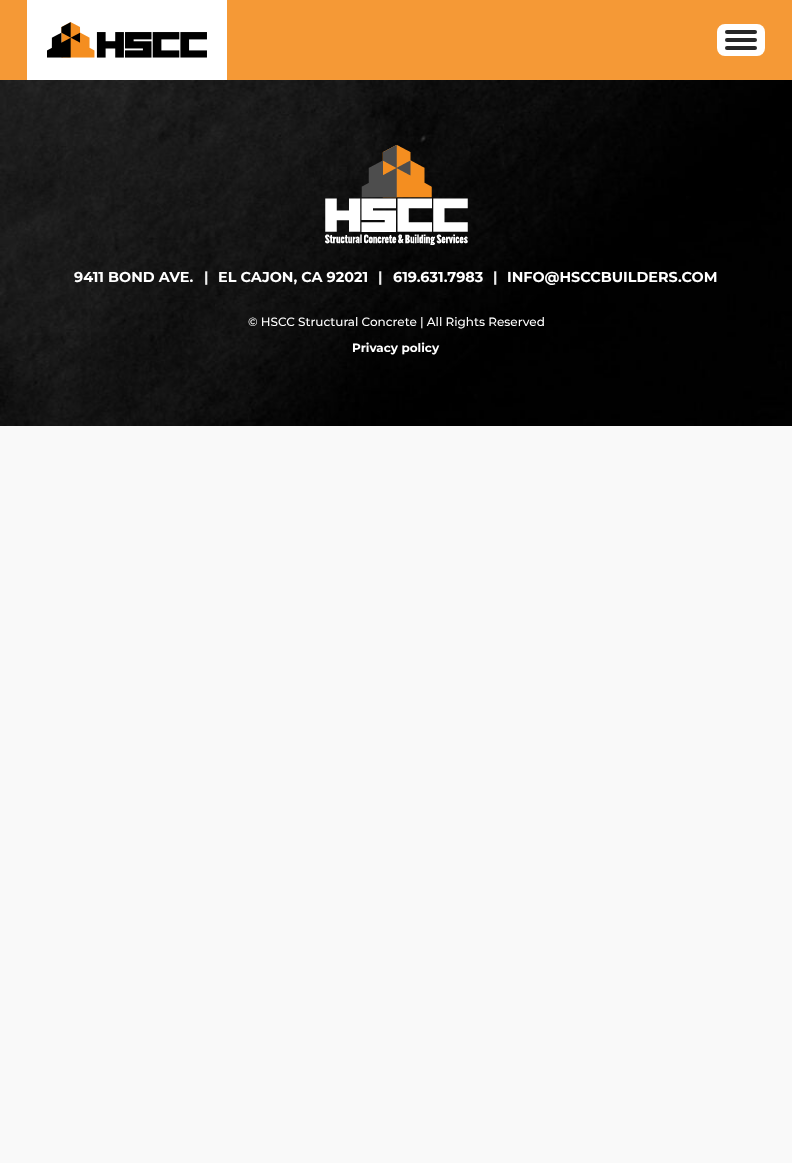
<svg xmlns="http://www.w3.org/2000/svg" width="792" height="1163">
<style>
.a{font:bold 14.4px Montserrat;fill:#fff}
.b{font:bold 14.4px Montserrat;fill:#f0f0f0}
.c{font:500 12px Montserrat;fill:#fff}
.d{font:bold 12px Montserrat;fill:#fff}
</style>
<rect width="100%" height="100%" fill="#f9f9f9"/>
<path fill="#f59936" d="M0 0h792v80H0z"/>
<path fill="#fff" d="M27 0h200v80H27z"/>
<image href="1.png" x="47" y="22" width="160" height="36"/>
<rect fill="#fff" x="717" y="24" width="48" height="32" rx="8"/>
<rect fill="#272727" x="725" y="38" width="32" height="4" rx="2"/>
<rect fill="#272727" x="725" y="30" width="32" height="4" rx="2"/>
<rect fill="#272727" x="725" y="46" width="32" height="4" rx="2"/>
<image href="2.png" x="0" y="80" width="792" height="346"/>
<image href="3.png" x="325" y="145" width="143" height="100"/>
<text class="a" x="74" y="282">9411 BOND AVE.</text>
<text class="b" x="204" y="282">|</text>
<text class="a" x="218" y="282">EL CAJON, CA 92021</text>
<text class="b" x="378" y="282">|</text>
<text class="a" x="393" y="282">619.631.7983</text>
<text class="b" x="493" y="282">|</text>
<text class="a" x="507" y="282">INFO@HSCCBUILDERS.COM</text>
<text class="c" x="248" y="326">© HSCC Structural Concrete | All Rights Reserved</text>
<text class="d" x="352" y="352">Privacy policy</text>
</svg>
